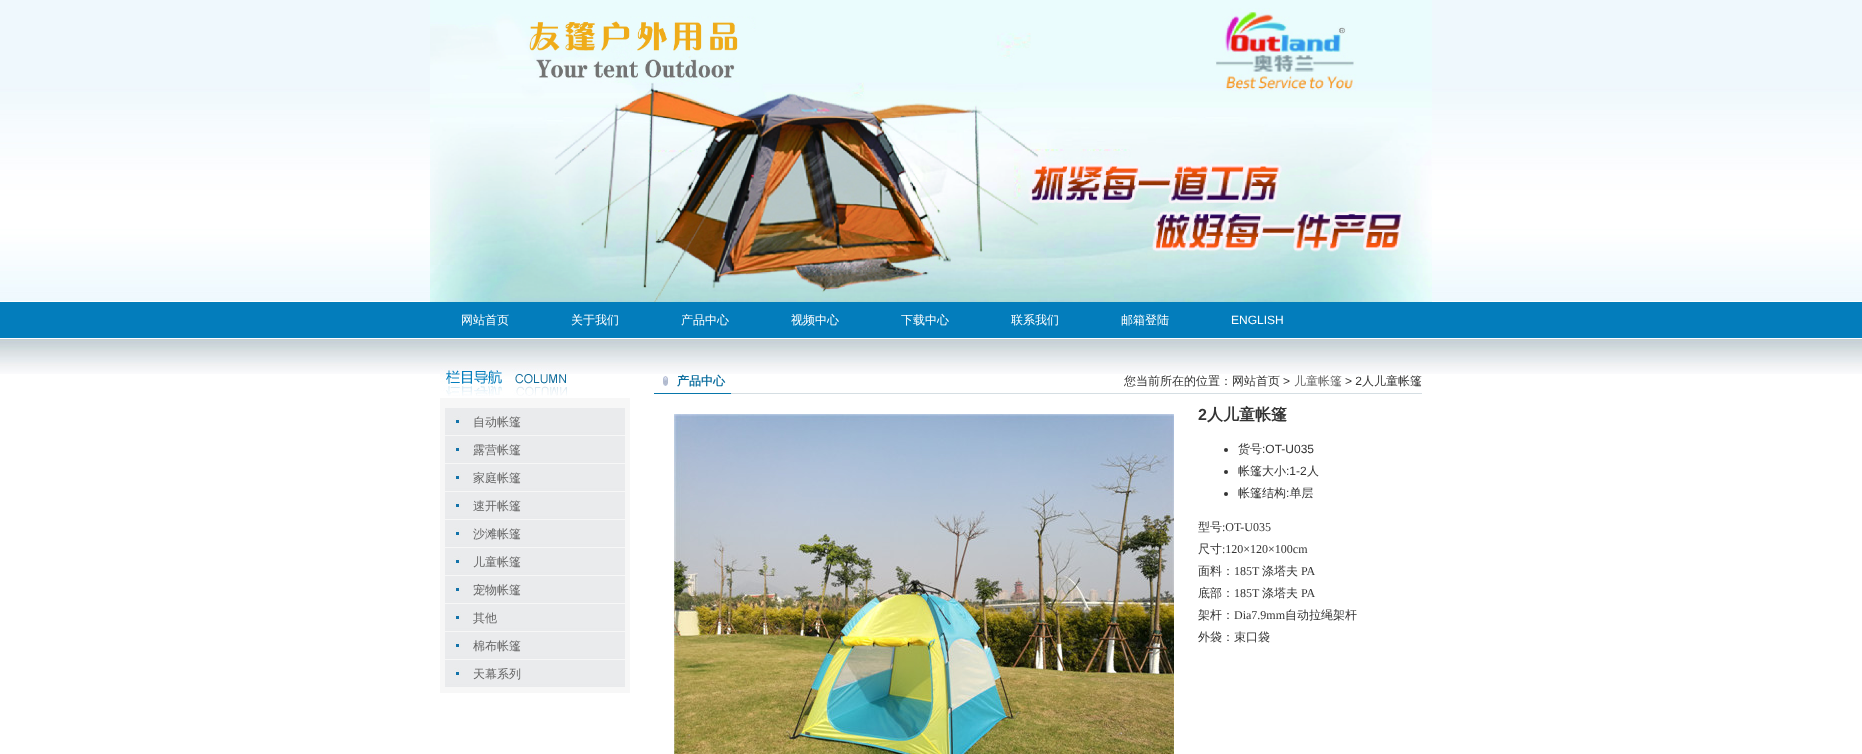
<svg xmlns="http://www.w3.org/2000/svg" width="1862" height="754">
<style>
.a{font:500 12px WenQuanYi Zen Hei;fill:#fff}
.b{font:12px Liberation Sans;fill:#fff}
.c{font:500 12px WenQuanYi Zen Hei;fill:#666}
.d{font:bold 12px WenQuanYi Zen Hei;fill:#0b6d9e}
.e{font:500 12px WenQuanYi Zen Hei;fill:#333}
.f{font:12px Liberation Sans;fill:#333}
.g{font:bold 16px Liberation Sans;fill:#333}
.h{font:bold 16px WenQuanYi Zen Hei;fill:#333}
.i{font:12px Liberation Serif;fill:#333}
</style>
<rect width="100%" height="100%" fill="#fff"/>
<image href="1.png" x="0" y="0" width="1862" height="374"/>
<image href="2.png" x="430" y="0" width="1002" height="302"/>
<image href="3.png" x="440" y="368" width="128" height="28"/>
<path fill="#f7f7f7" d="M440 398h190v295H440z"/>
<image href="4.png" x="445" y="408" width="180" height="27"/>
<image href="4.png" x="445" y="436" width="180" height="27"/>
<image href="4.png" x="445" y="464" width="180" height="27"/>
<image href="4.png" x="445" y="492" width="180" height="27"/>
<image href="4.png" x="445" y="520" width="180" height="27"/>
<image href="4.png" x="445" y="548" width="180" height="27"/>
<image href="4.png" x="445" y="576" width="180" height="27"/>
<image href="4.png" x="445" y="604" width="180" height="27"/>
<image href="4.png" x="445" y="632" width="180" height="27"/>
<image href="4.png" x="445" y="660" width="180" height="27"/>
<image href="5.png" x="663" y="376" width="5" height="10"/>
<image href="6.png" x="654" y="393" width="768" height="1"/>
<image href="7.png" x="674" y="414" width="500" height="340"/>
<circle fill="#333" cx="1226" cy="450" r="2"/>
<circle fill="#333" cx="1226" cy="472" r="2"/>
<circle fill="#333" cx="1226" cy="494" r="2"/>
<text class="a" x="461" y="324">网站首页</text>
<text class="a" x="571" y="324">关于我们</text>
<text class="a" x="681" y="324">产品中心</text>
<text class="a" x="791" y="324">视频中心</text>
<text class="a" x="901" y="324">下载中心</text>
<text class="a" x="1011" y="324">联系我们</text>
<text class="a" x="1121" y="324">邮箱登陆</text>
<text class="b" x="1231" y="324">ENGLISH</text>
<text class="c" x="473" y="426">自动帐篷</text>
<text class="c" x="473" y="454">露营帐篷</text>
<text class="c" x="473" y="482">家庭帐篷</text>
<text class="c" x="473" y="510">速开帐篷</text>
<text class="c" x="473" y="538">沙滩帐篷</text>
<text class="c" x="473" y="566">儿童帐篷</text>
<text class="c" x="473" y="594">宠物帐篷</text>
<text class="c" x="473" y="622">其他</text>
<text class="c" x="473" y="650">棉布帐篷</text>
<text class="c" x="473" y="678">天幕系列</text>
<text class="d" x="677" y="385">产品中心</text>
<text class="e" x="1124" y="385">您当前所在的位置：网站首页</text>
<text class="f" x="1283" y="385">&gt;</text>
<text class="c" x="1294" y="385">儿童帐篷</text>
<text class="f" x="1345" y="385">&gt; 2</text>
<text class="e" x="1362" y="385">人儿童帐篷</text>
<text class="g" x="1198" y="420">2</text>
<text class="h" x="1207" y="420">人儿童帐篷</text>
<text class="e" x="1238" y="453">货号</text>
<text class="f" x="1262" y="453">:OT-U035</text>
<text class="e" x="1238" y="475">帐篷大小</text>
<text class="f" x="1286" y="475">:1-2</text>
<text class="e" x="1307" y="475">人</text>
<text class="e" x="1238" y="497">帐篷结构 单层</text>
<text class="f" x="1286" y="497">:</text>
<text class="e" x="1198" y="531">型号</text>
<text class="i" x="1222" y="531">:OT-U035</text>
<text class="e" x="1198" y="553">尺寸</text>
<text class="i" x="1222" y="553">:120×120×100cm</text>
<text class="e" x="1198" y="575">面料：</text>
<text class="i" x="1234" y="575">185T</text>
<text class="e" x="1262" y="575">涤塔夫</text>
<text class="i" x="1301" y="575">PA</text>
<text class="e" x="1198" y="597">底部：</text>
<text class="i" x="1234" y="597">185T</text>
<text class="e" x="1262" y="597">涤塔夫</text>
<text class="i" x="1301" y="597">PA</text>
<text class="e" x="1198" y="619">架杆：</text>
<text class="i" x="1234" y="619">Dia7.9mm</text>
<text class="e" x="1285" y="619">自动拉绳架杆</text>
<text class="e" x="1198" y="641">外袋：束口袋</text>
</svg>
